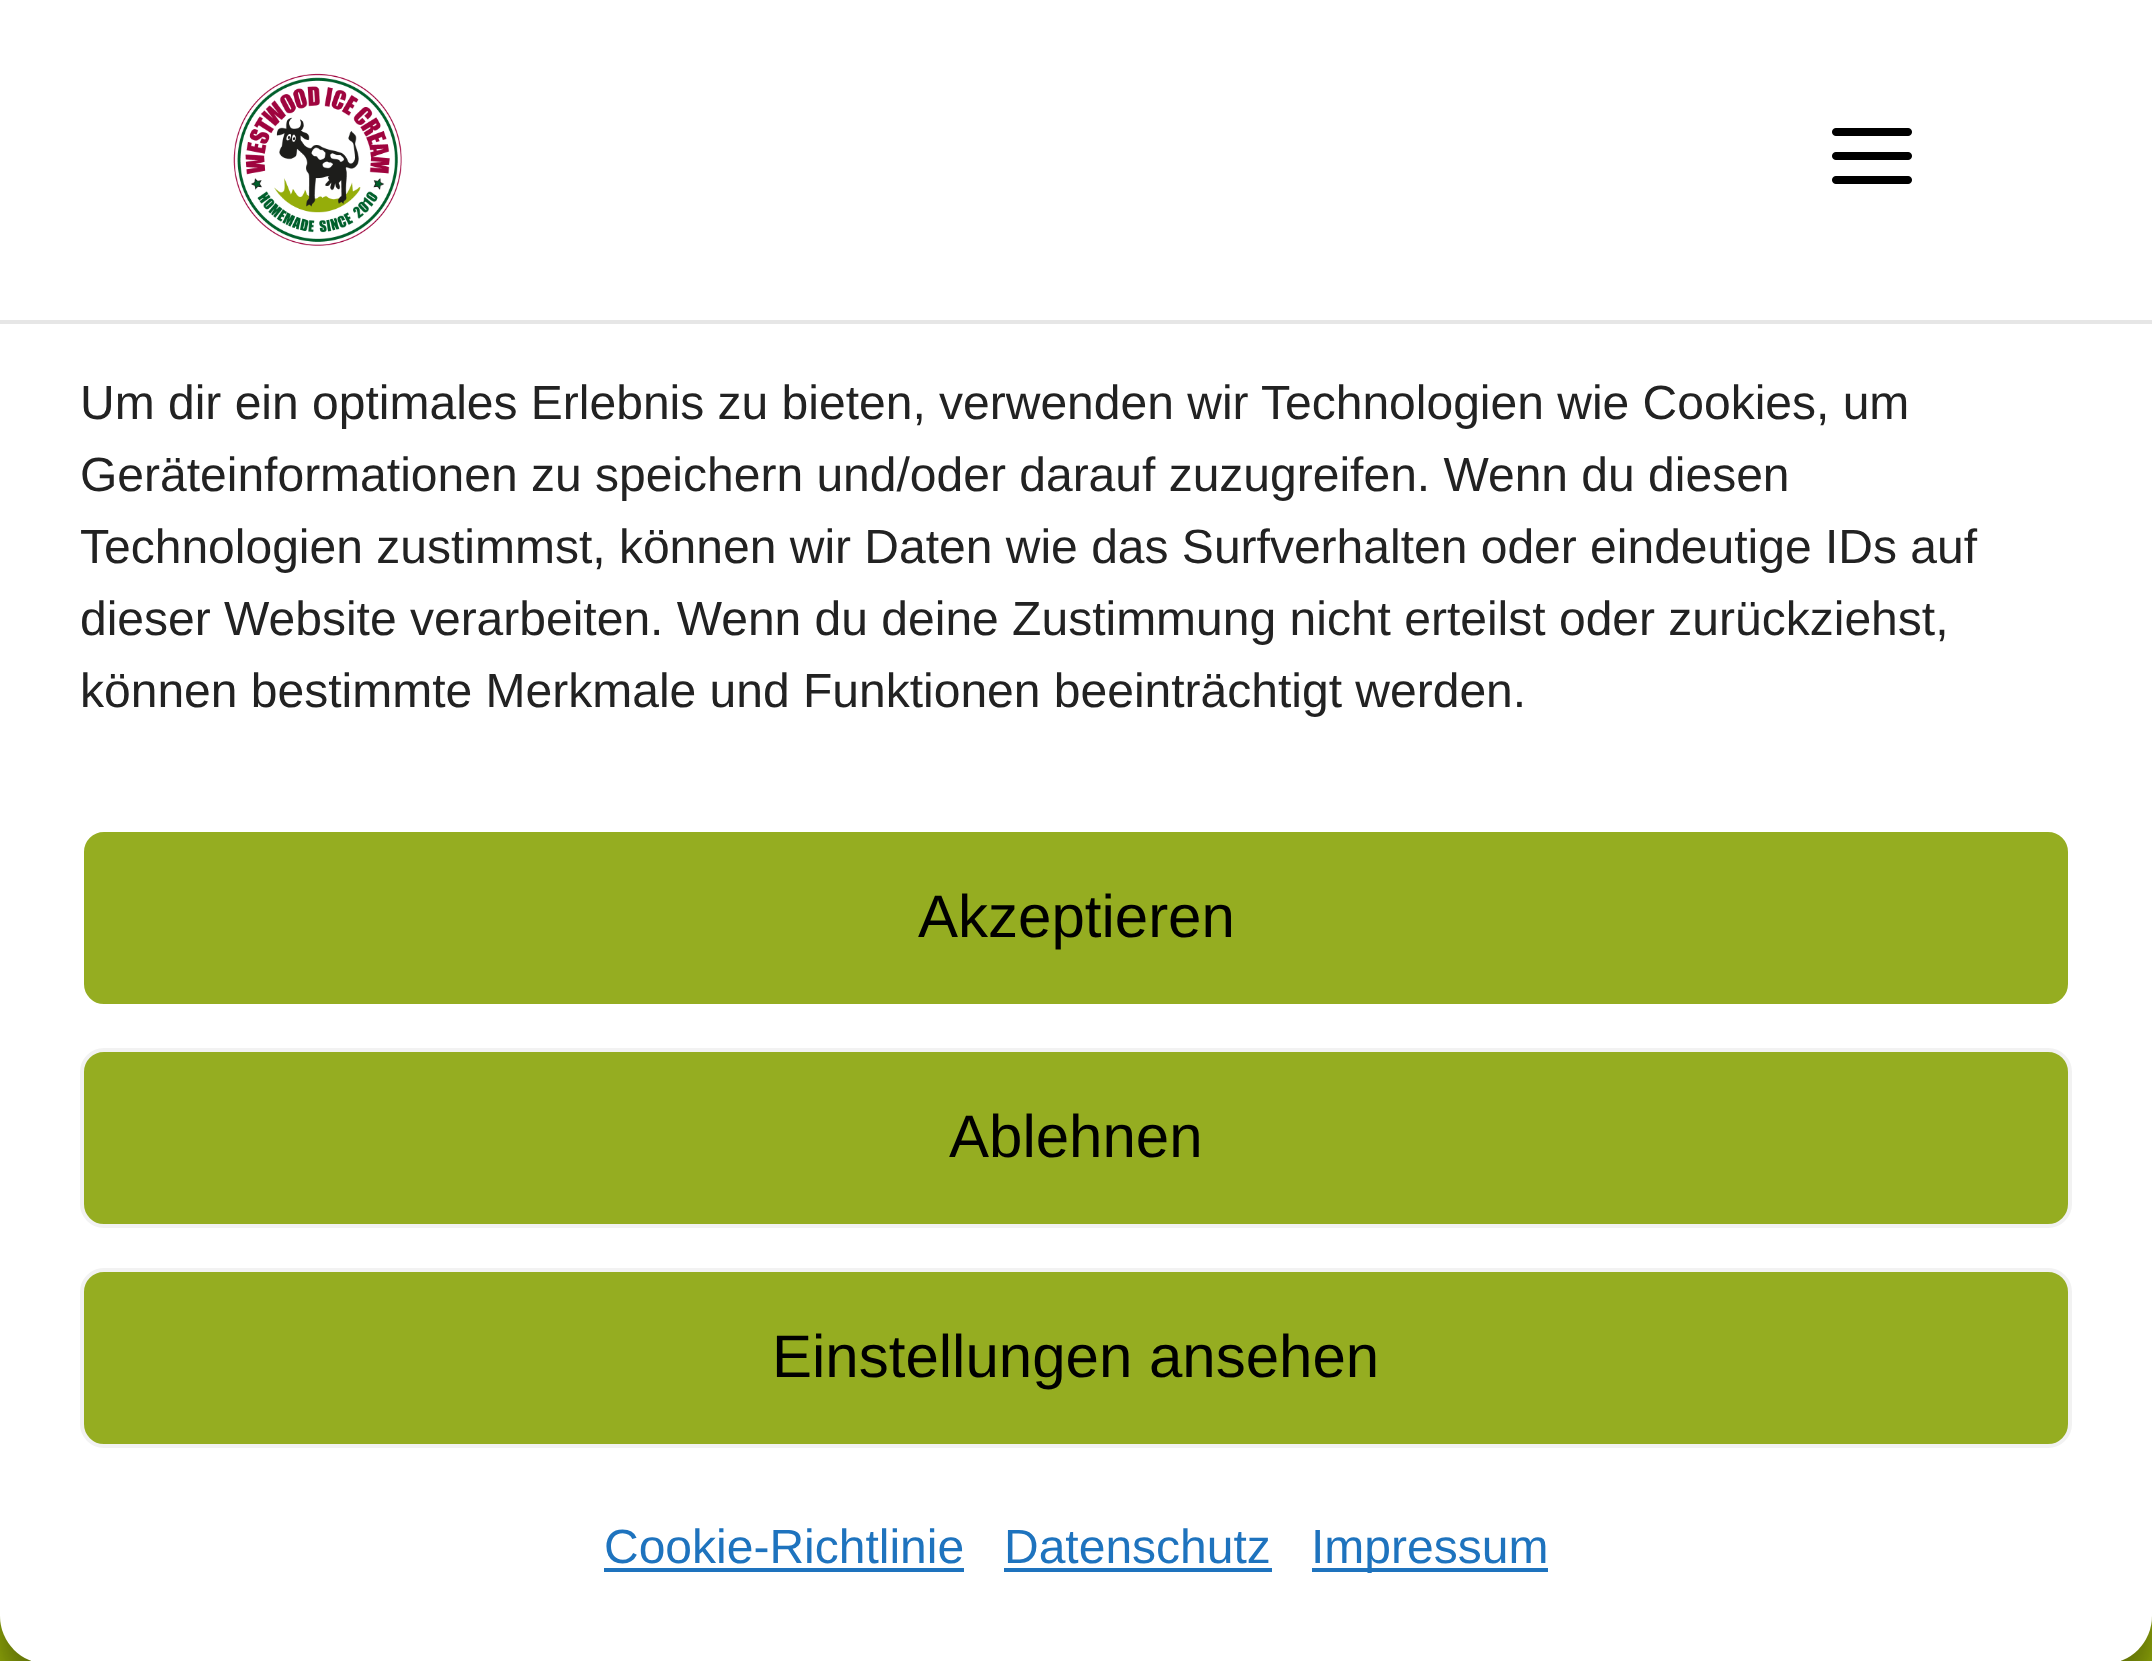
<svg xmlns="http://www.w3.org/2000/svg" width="2152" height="1661">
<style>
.a{font:48px Liberation Sans;fill:#222}
.b{font:60px Liberation Sans;fill:#000}
.c{font:48px Liberation Sans;fill:#1e73be}
</style>
<rect width="100%" height="100%" fill="#95ad0a"/>
<rect fill="#0000003b" filter="blur(12px)" y="144" width="2152" height="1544" rx="48"/>
<rect fill="#00000030" filter="blur(40px)" y="160" width="2152" height="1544" rx="48"/>
<rect fill="#fff" y="120" width="2152" height="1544" rx="48"/>
<path fill="#e6e6e6" d="M0 320h2152v4H0z"/>
<path fill="#fff" d="M0 0h2152v168H0z"/>
<image href="1.png" x="233" y="73" width="169" height="173"/>
<image href="2.png" x="1832" y="128" width="80" height="56"/>
<rect fill="#95ad21" stroke="#fff" stroke-width="4" x="82" y="830" width="1988" height="176" rx="22"/>
<rect fill="#95ad21" stroke="#f2f2f2" stroke-width="4" x="82" y="1050" width="1988" height="176" rx="22"/>
<rect fill="#95ad21" stroke="#f2f2f2" stroke-width="4" x="82" y="1270" width="1988" height="176" rx="22"/>
<path fill="#1e73be" d="M604 1568h360v4H604z"/>
<path fill="#1e73be" d="M1004 1568h268v4H1004z"/>
<path fill="#1e73be" d="M1312 1568h236v4H1312z"/>
<text class="a" x="80" y="419">Um dir ein optimales Erlebnis zu bieten, verwenden wir Technologien wie Cookies, um</text>
<text class="a" x="80" y="491">Geräteinformationen zu speichern und/oder darauf zuzugreifen. Wenn du diesen</text>
<text class="a" x="80" y="563">Technologien zustimmst, können wir Daten wie das Surfverhalten oder eindeutige IDs auf</text>
<text class="a" x="80" y="635">dieser Website verarbeiten. Wenn du deine Zustimmung nicht erteilst oder zurückziehst,</text>
<text class="a" x="80" y="707">können bestimmte Merkmale und Funktionen beeinträchtigt werden.</text>
<text class="b" x="918" y="937">Akzeptieren</text>
<text class="b" x="949" y="1157">Ablehnen</text>
<text class="b" x="772" y="1377">Einstellungen ansehen</text>
<text class="c" x="604" y="1563">Cookie-Richtlinie</text>
<text class="c" x="1004" y="1563">Datenschutz</text>
<text class="c" x="1311" y="1563">Impressum</text>
</svg>
